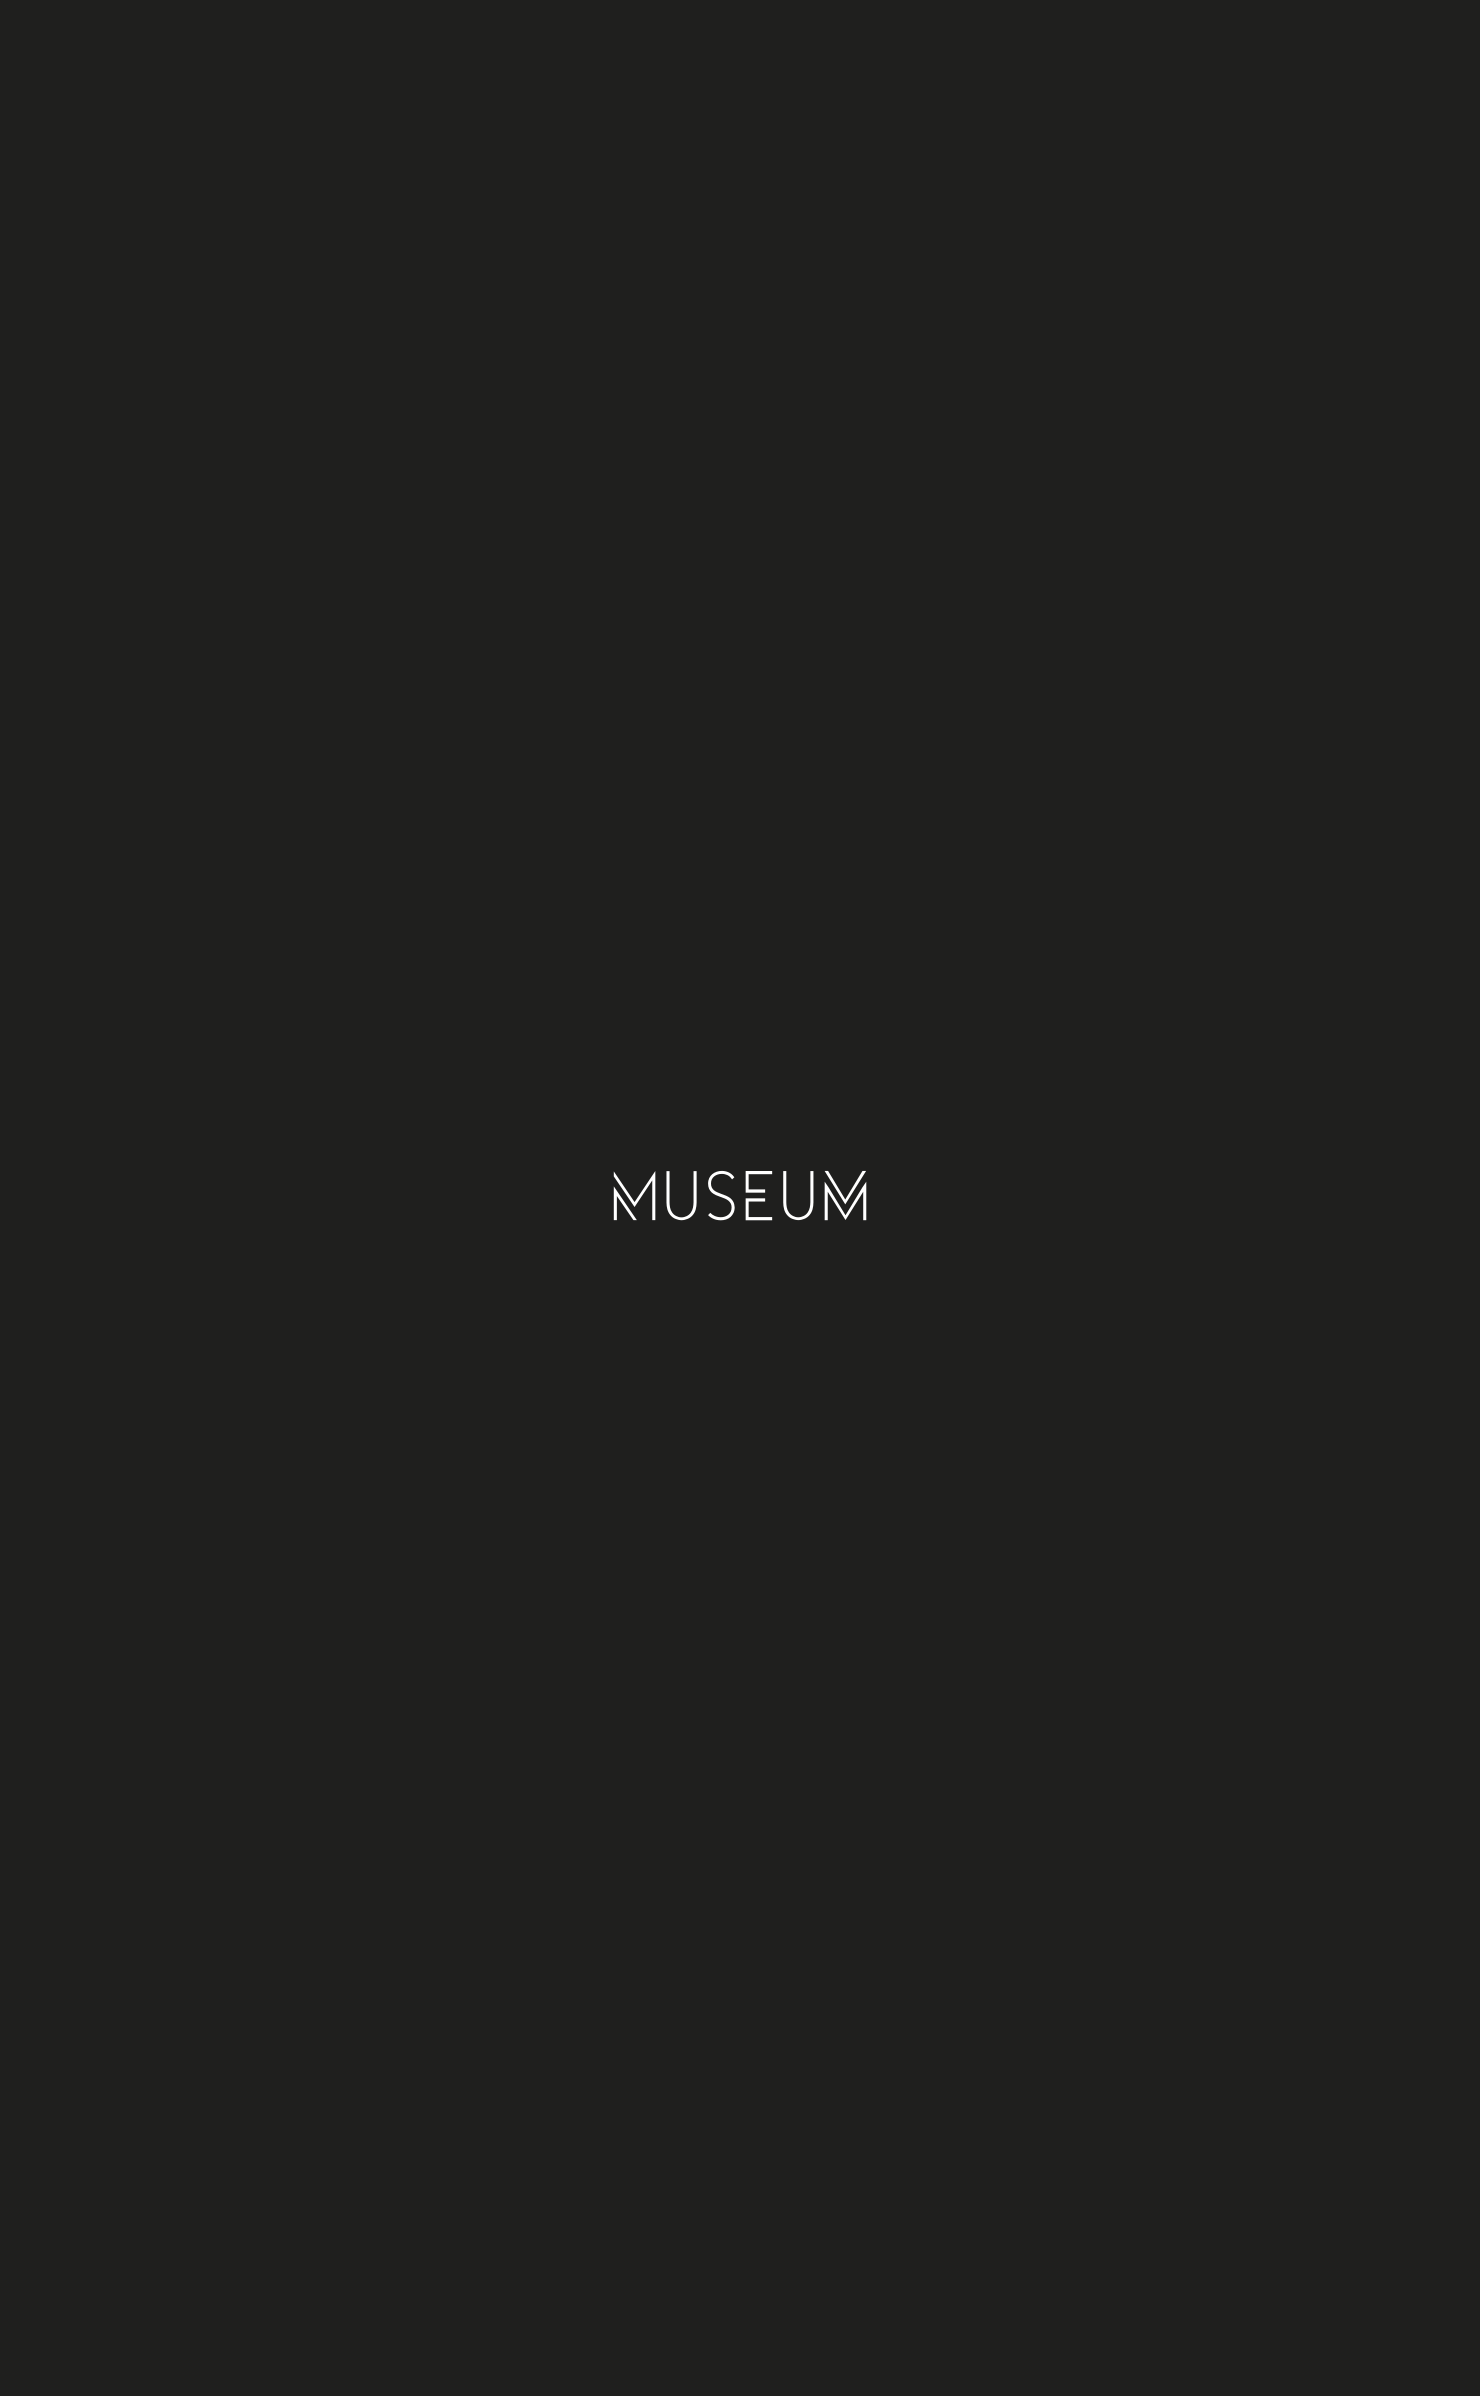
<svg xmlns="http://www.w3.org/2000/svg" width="1480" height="2396">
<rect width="100%" height="100%" fill="#1f1f1e"/>
<image href="1.png" x="613" y="1170" width="254" height="51"/>
</svg>
